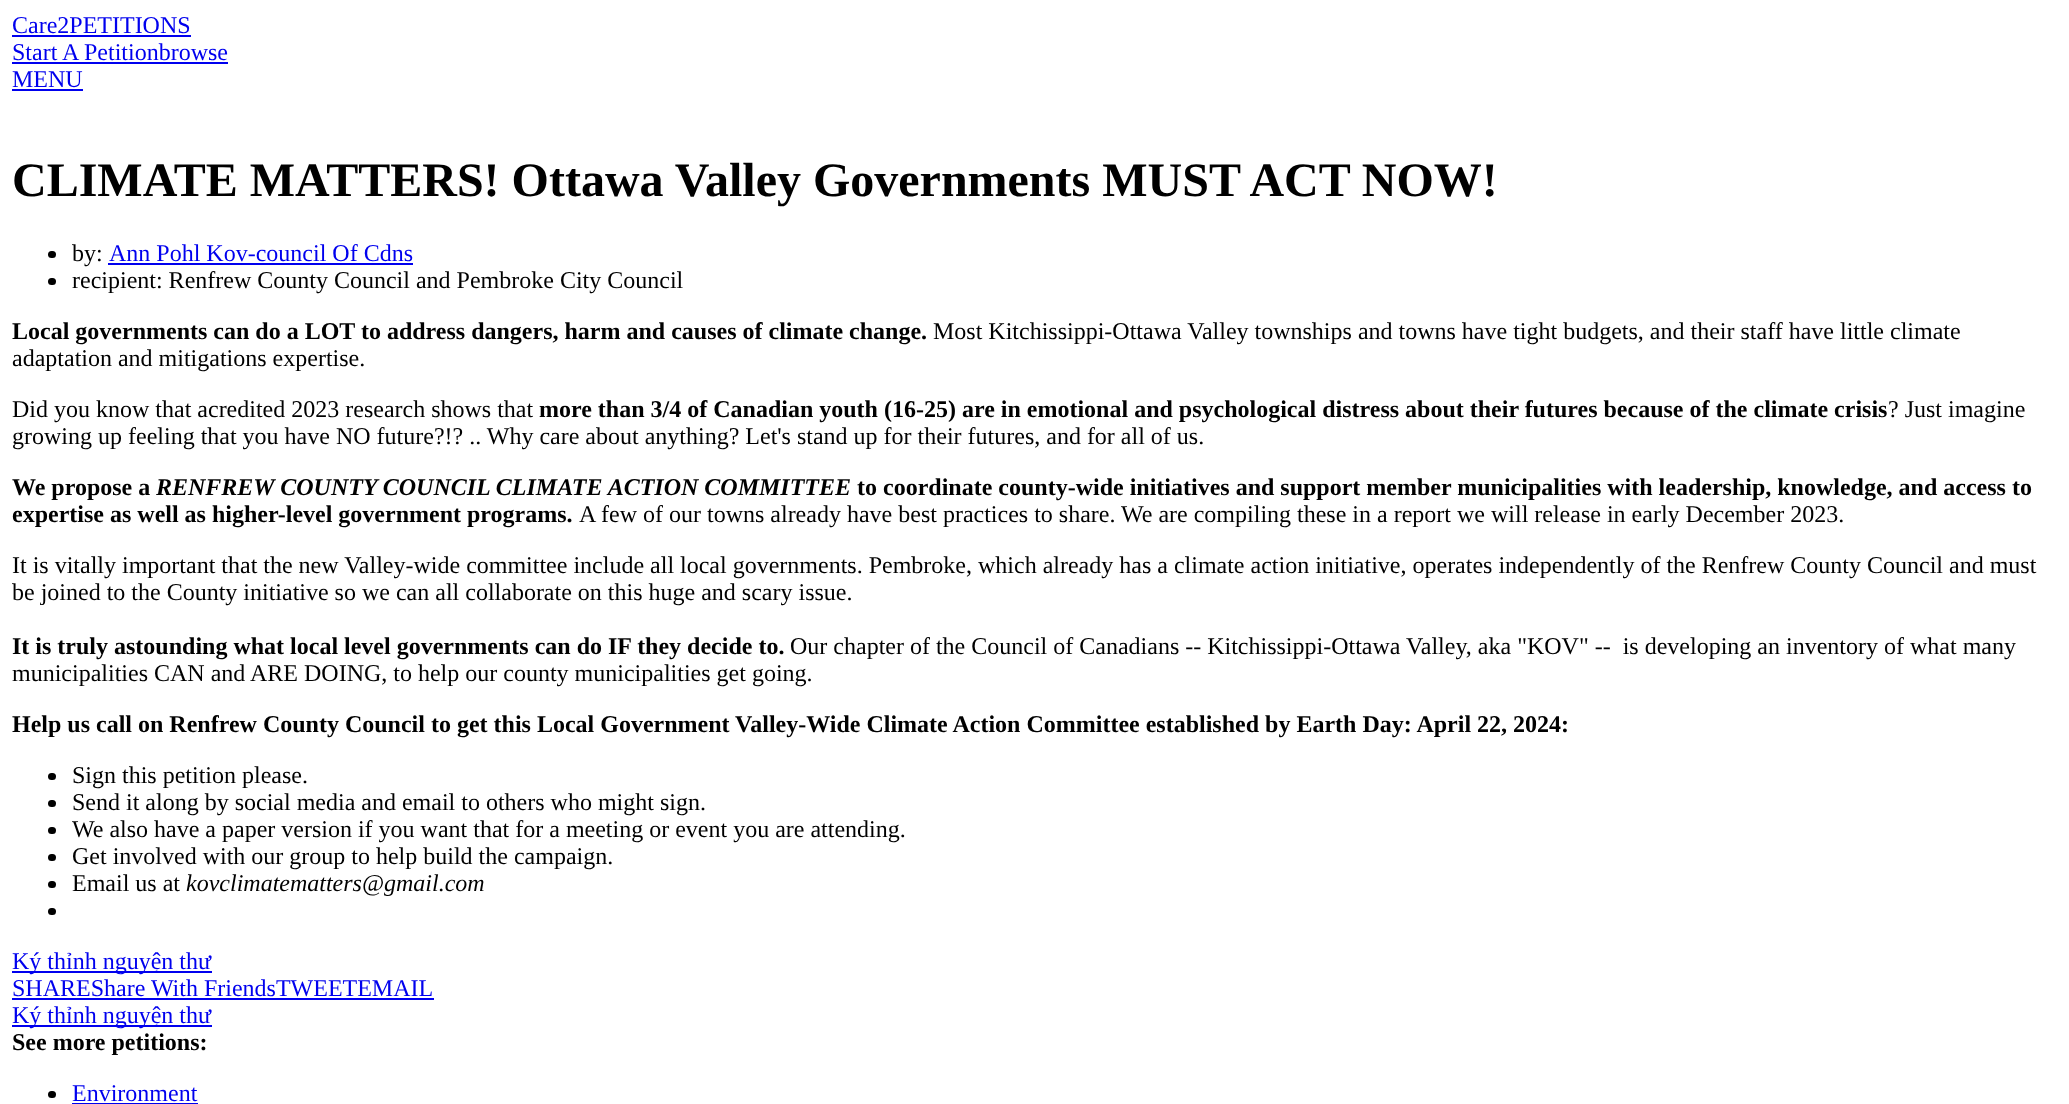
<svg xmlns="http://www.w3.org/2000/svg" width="2069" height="1104">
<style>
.a{font:24px Liberation Serif;fill:#00e}
.b{font:bold 48px Liberation Serif;fill:#000}
.c{font:24px Liberation Serif;fill:#000}
.d{font:bold 24px Liberation Serif;fill:#000}
.e{font:italic bold 24px Liberation Serif;fill:#000}
.f{font:italic 24px Liberation Serif;fill:#000}
</style>
<rect width="100%" height="100%" fill="#fff"/>
<path fill="#00e" d="M12 35h179v2H12z"/>
<path fill="#00e" d="M12 62h216v2H12z"/>
<path fill="#00e" d="M12 89h71v2H12z"/>
<rect fill="#000" x="48" y="251" width="8" height="7" rx="3.5"/>
<path fill="#00e" d="M108 263h305v2H108z"/>
<rect fill="#000" x="48" y="278" width="8" height="7" rx="3.5"/>
<rect fill="#000" x="48" y="773" width="8" height="7" rx="3.5"/>
<rect fill="#000" x="48" y="800" width="8" height="7" rx="3.5"/>
<rect fill="#000" x="48" y="827" width="8" height="7" rx="3.5"/>
<rect fill="#000" x="48" y="854" width="8" height="7" rx="3.5"/>
<rect fill="#000" x="48" y="881" width="8" height="7" rx="3.5"/>
<rect fill="#000" x="48" y="908" width="8" height="7" rx="3.5"/>
<path fill="#00e" d="M12 971h200v2H12z"/>
<path fill="#00e" d="M12 998h422v2H12z"/>
<path fill="#00e" d="M12 1025h200v2H12z"/>
<rect fill="#000" x="48" y="1091" width="8" height="7" rx="3.5"/>
<path fill="#00e" d="M72 1103h126v1H72z"/>
<text class="a" x="12" y="33">Care2PETITIONS</text>
<text class="a" x="12" y="60">Start A Petitionbrowse</text>
<text class="a" x="12" y="87">MENU</text>
<text class="b" x="12" y="196">CLIMATE MATTERS! Ottawa Valley Governments MUST ACT NOW!</text>
<text class="c" x="72" y="261">by:</text>
<text class="a" x="109" y="261">Ann Pohl Kov-council Of Cdns</text>
<text class="c" x="72" y="288">recipient: Renfrew County Council and Pembroke City Council</text>
<text class="d" x="12" y="339">Local governments can do a LOT to address dangers, harm and causes of climate change.</text>
<text class="c" x="933" y="339">Most Kitchissippi-Ottawa Valley townships and towns have tight budgets, and their staff have little climate</text>
<text class="c" x="12" y="366">adaptation and mitigations expertise.</text>
<text class="c" x="12" y="417">Did you know that acredited 2023 research shows that</text>
<text class="d" x="539" y="417">more than 3/4 of Canadian youth (16-25) are in emotional and psychological distress about their futures because of the climate crisis</text>
<text class="c" x="1888" y="417">? Just imagine</text>
<text class="c" x="12" y="444">growing up feeling that you have NO future?!? .. Why care about anything? Let's stand up for their futures, and for all of us.</text>
<text class="d" x="12" y="495">We propose a</text>
<text class="e" x="156" y="495">RENFREW COUNTY COUNCIL CLIMATE ACTION COMMITTEE</text>
<text class="d" x="857" y="495">to coordinate county-wide initiatives and support member municipalities with leadership, knowledge, and access to</text>
<text class="d" x="12" y="522">expertise as well as higher-level government programs.</text>
<text class="c" x="579" y="522">A few of our towns already have best practices to share. We are compiling these in a report we will release in early December 2023.</text>
<text class="c" x="12" y="573">It is vitally important that the new Valley-wide committee include all local governments. Pembroke, which already has a climate action initiative, operates independently of the Renfrew County Council and must</text>
<text class="c" x="12" y="600">be joined to the County initiative so we can all collaborate on this huge and scary issue.</text>
<text class="d" x="12" y="654">It is truly astounding what local level governments can do IF they decide to.</text>
<text class="c" xml:space="preserve" x="790" y="654">Our chapter of the Council of Canadians -- Kitchissippi-Ottawa Valley, aka "KOV" --  is developing an inventory of what many</text>
<text class="c" x="12" y="681">municipalities CAN and ARE DOING, to help our county municipalities get going.</text>
<text class="d" x="12" y="732">Help us call on Renfrew County Council to get this Local Government Valley-Wide Climate Action Committee established by Earth Day: April 22, 2024:</text>
<text class="c" x="72" y="783">Sign this petition please.</text>
<text class="c" x="72" y="810">Send it along by social media and email to others who might sign.</text>
<text class="c" x="72" y="837">We also have a paper version if you want that for a meeting or event you are attending.</text>
<text class="c" x="72" y="864">Get involved with our group to help build the campaign.</text>
<text class="c" x="72" y="891">Email us at</text>
<text class="f" x="186" y="891">kovclimatematters@gmail.com</text>
<text class="a" x="12" y="969">Ký thỉnh nguyện thư</text>
<text class="a" x="12" y="996">SHAREShare With FriendsTWEETEMAIL</text>
<text class="a" x="12" y="1023">Ký thỉnh nguyện thư</text>
<text class="d" x="12" y="1050">See more petitions:</text>
<text class="a" x="72" y="1101">Environment</text>
</svg>
